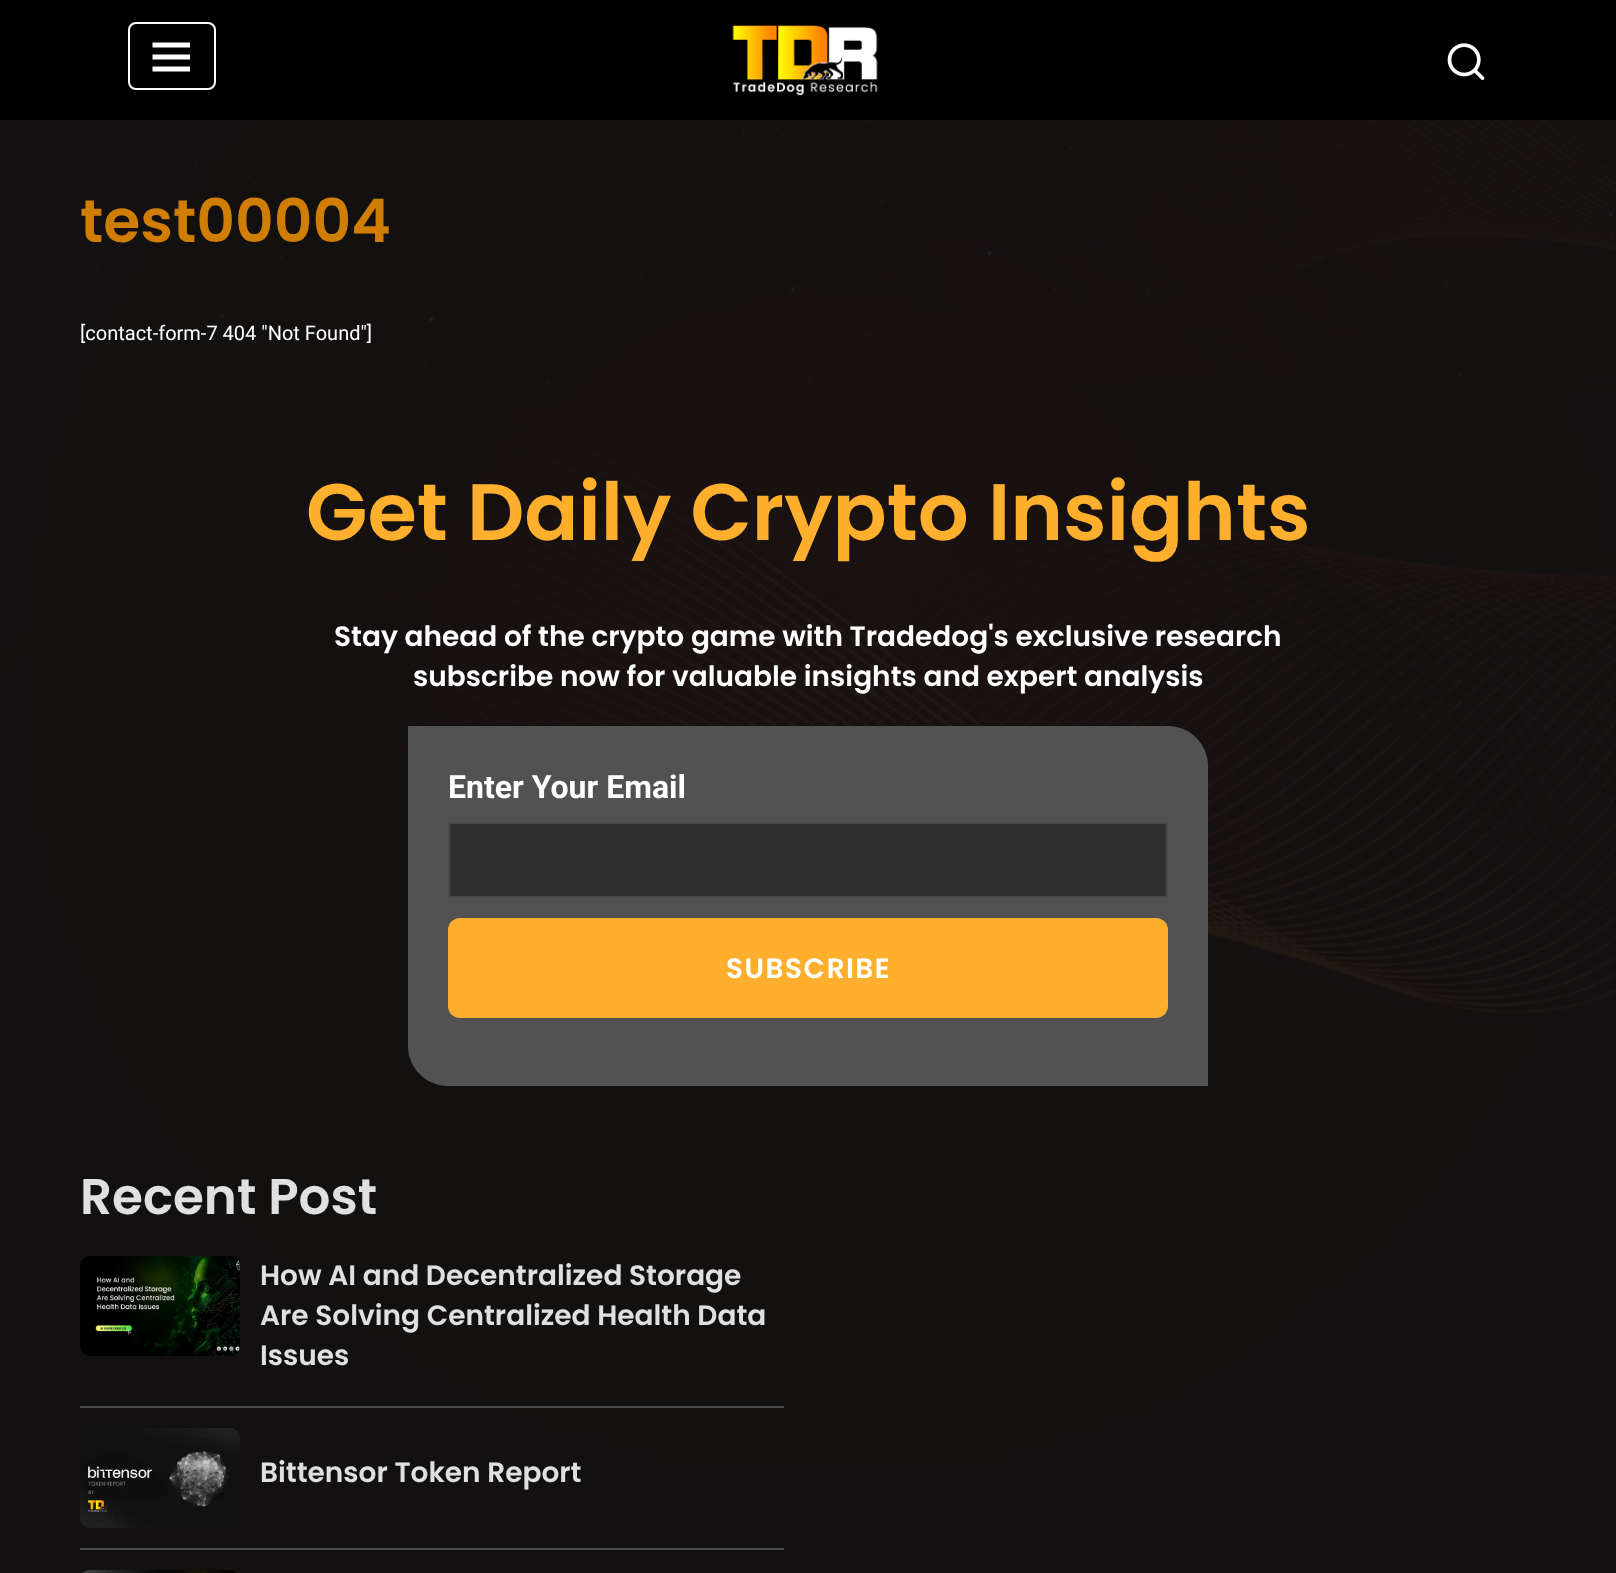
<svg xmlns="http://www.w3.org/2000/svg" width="1616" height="1573">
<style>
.a{font:600 60px Poppins;fill:#d07e03}
.b{font:20px Roboto;fill:#fff}
.c{font:600 80px Poppins;fill:#feaf2e}
.d{font:600 28px Poppins;fill:#fff}
.e{font:bold 32px Roboto;fill:#fff}
.f{font:600 28px Poppins;letter-spacing:1.5px;fill:#fff}
.g{font:600 50px Poppins;fill:#e0e0e0}
.h{font:600 28px Poppins;fill:#e0e0e0}
</style>
<rect width="100%" height="100%" fill="#121010"/>
<image href="1.png" x="0" y="120" width="1616" height="1346"/>
<path fill="#000" d="M0 0h1616v120H0z"/>
<rect fill="none" stroke="#fff" stroke-width="2" x="129" y="23" width="86" height="66" rx="7"/>
<path fill="#fff" d="M152.5 42.5h37.5v5h-37.5zm0 12h37.5v5h-37.5zm0 12h37.5v5h-37.5z"/>
<image href="2.png" x="732" y="25" width="146" height="71"/>
<image href="3.png" x="1447" y="43" width="38" height="37"/>
<path fill="#525252" d="M408 726h760c22 0 40 18 40 40v320h-760c-22 0-40-18-40-40z"/>
<path fill="#2e2e2e" stroke="#49494b" stroke-width="2" d="M449 823h718v74H449z"/>
<rect fill="#feaf2e" x="448" y="918" width="720" height="100" rx="12"/>
<rect fill="#0d160b" x="80" y="1256" width="160" height="100" rx="10"/>
<image href="4.png" x="80" y="1256" width="160" height="100"/>
<path fill="#49494b" d="M80 1406h704v2H80z"/>
<rect fill="#212120" x="80" y="1428" width="160" height="100" rx="10"/>
<image href="5.png" x="80" y="1428" width="160" height="100"/>
<path fill="#49494b" d="M80 1548h704v2H80z"/>
<rect fill="#261e12" x="80" y="1570" width="160" height="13" rx="10"/>
<image href="6.png" x="83" y="1570" width="154" height="3"/>
<text class="a" x="80" y="242">test00004</text>
<text class="b" x="80" y="340">[contact-form-7 404 "Not Found"]</text>
<text class="c" x="306" y="540">Get Daily Crypto Insights</text>
<text class="d" x="334" y="646">Stay ahead of the crypto game with Tradedog's exclusive research</text>
<text class="d" x="413" y="686">subscribe now for valuable insights and expert analysis</text>
<text class="e" x="448" y="798">Enter Your Email</text>
<text class="f" x="726" y="978">SUBSCRIBE</text>
<text class="g" x="80" y="1214">Recent Post</text>
<text class="h" x="260" y="1285">How AI and Decentralized Storage</text>
<text class="h" x="260" y="1325">Are Solving Centralized Health Data</text>
<text class="h" x="260" y="1365">Issues</text>
<text class="h" x="260" y="1482">Bittensor Token Report</text>
</svg>
